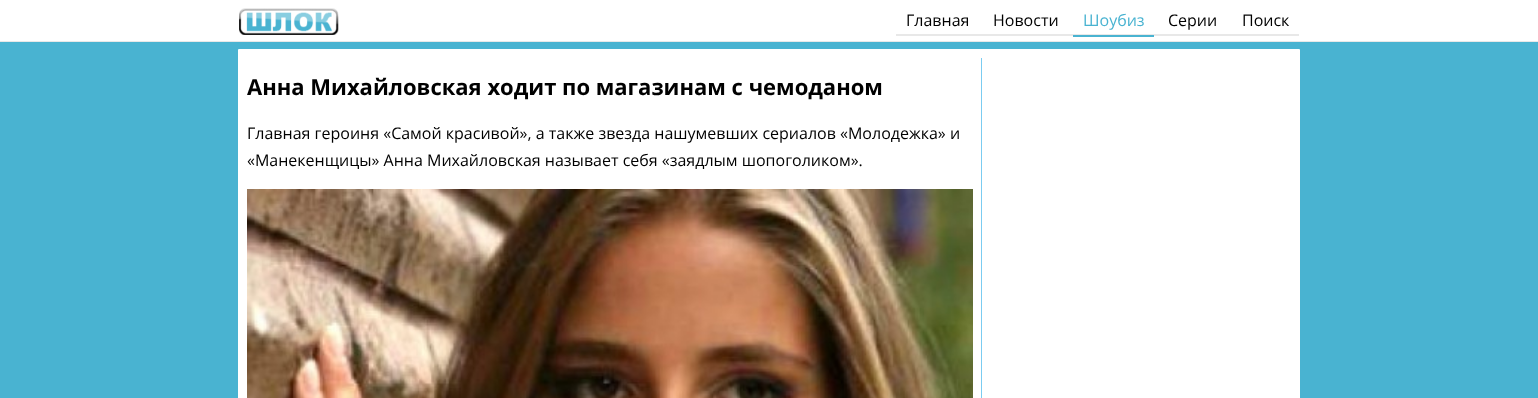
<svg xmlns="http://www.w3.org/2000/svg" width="1538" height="398">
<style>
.a{font:16px Open Sans;fill:#000}
.b{font:16px Open Sans;fill:#49b3d1}
.c{font:bold 22px Open Sans;fill:#000}
</style>
<rect width="100%" height="100%" fill="#49b3d1"/>
<path fill="#fff" d="M0 0h1538v41H0z"/>
<path fill="#e8e8e8" d="M0 41h1538v1H0z"/>
<image href="1.png" x="239" y="8" width="100" height="27"/>
<path fill="#e8e8e8" d="M896 34h403v2H896z"/>
<path fill="#49b3d1" d="M1073 35h81v2H1073z"/>
<path fill="none" stroke="#fff" d="M238.5 49.5h1061v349H238.5z"/>
<path fill="#fff" d="M239 50h1060v348H239z"/>
<image href="2.png" x="247" y="189" width="726" height="209"/>
<path fill="#7bccf1" d="M981 58h1v340H981z"/>
<text class="a" x="906" y="26">Главная</text>
<text class="a" x="993" y="26">Новости</text>
<text class="b" x="1083" y="26">Шоубиз</text>
<text class="a" x="1168" y="26">Серии</text>
<text class="a" x="1242" y="26">Поиск</text>
<text class="c" x="247" y="95">Анна Михайловская ходит по магазинам с чемоданом</text>
<text class="a" x="247" y="139">Главная героиня «Самой красивой», а также звезда нашумевших сериалов «Молодежка» и</text>
<text class="a" x="247" y="166">«Манекенщицы» Анна Михайловская называет себя «заядлым шопоголиком».</text>
</svg>
